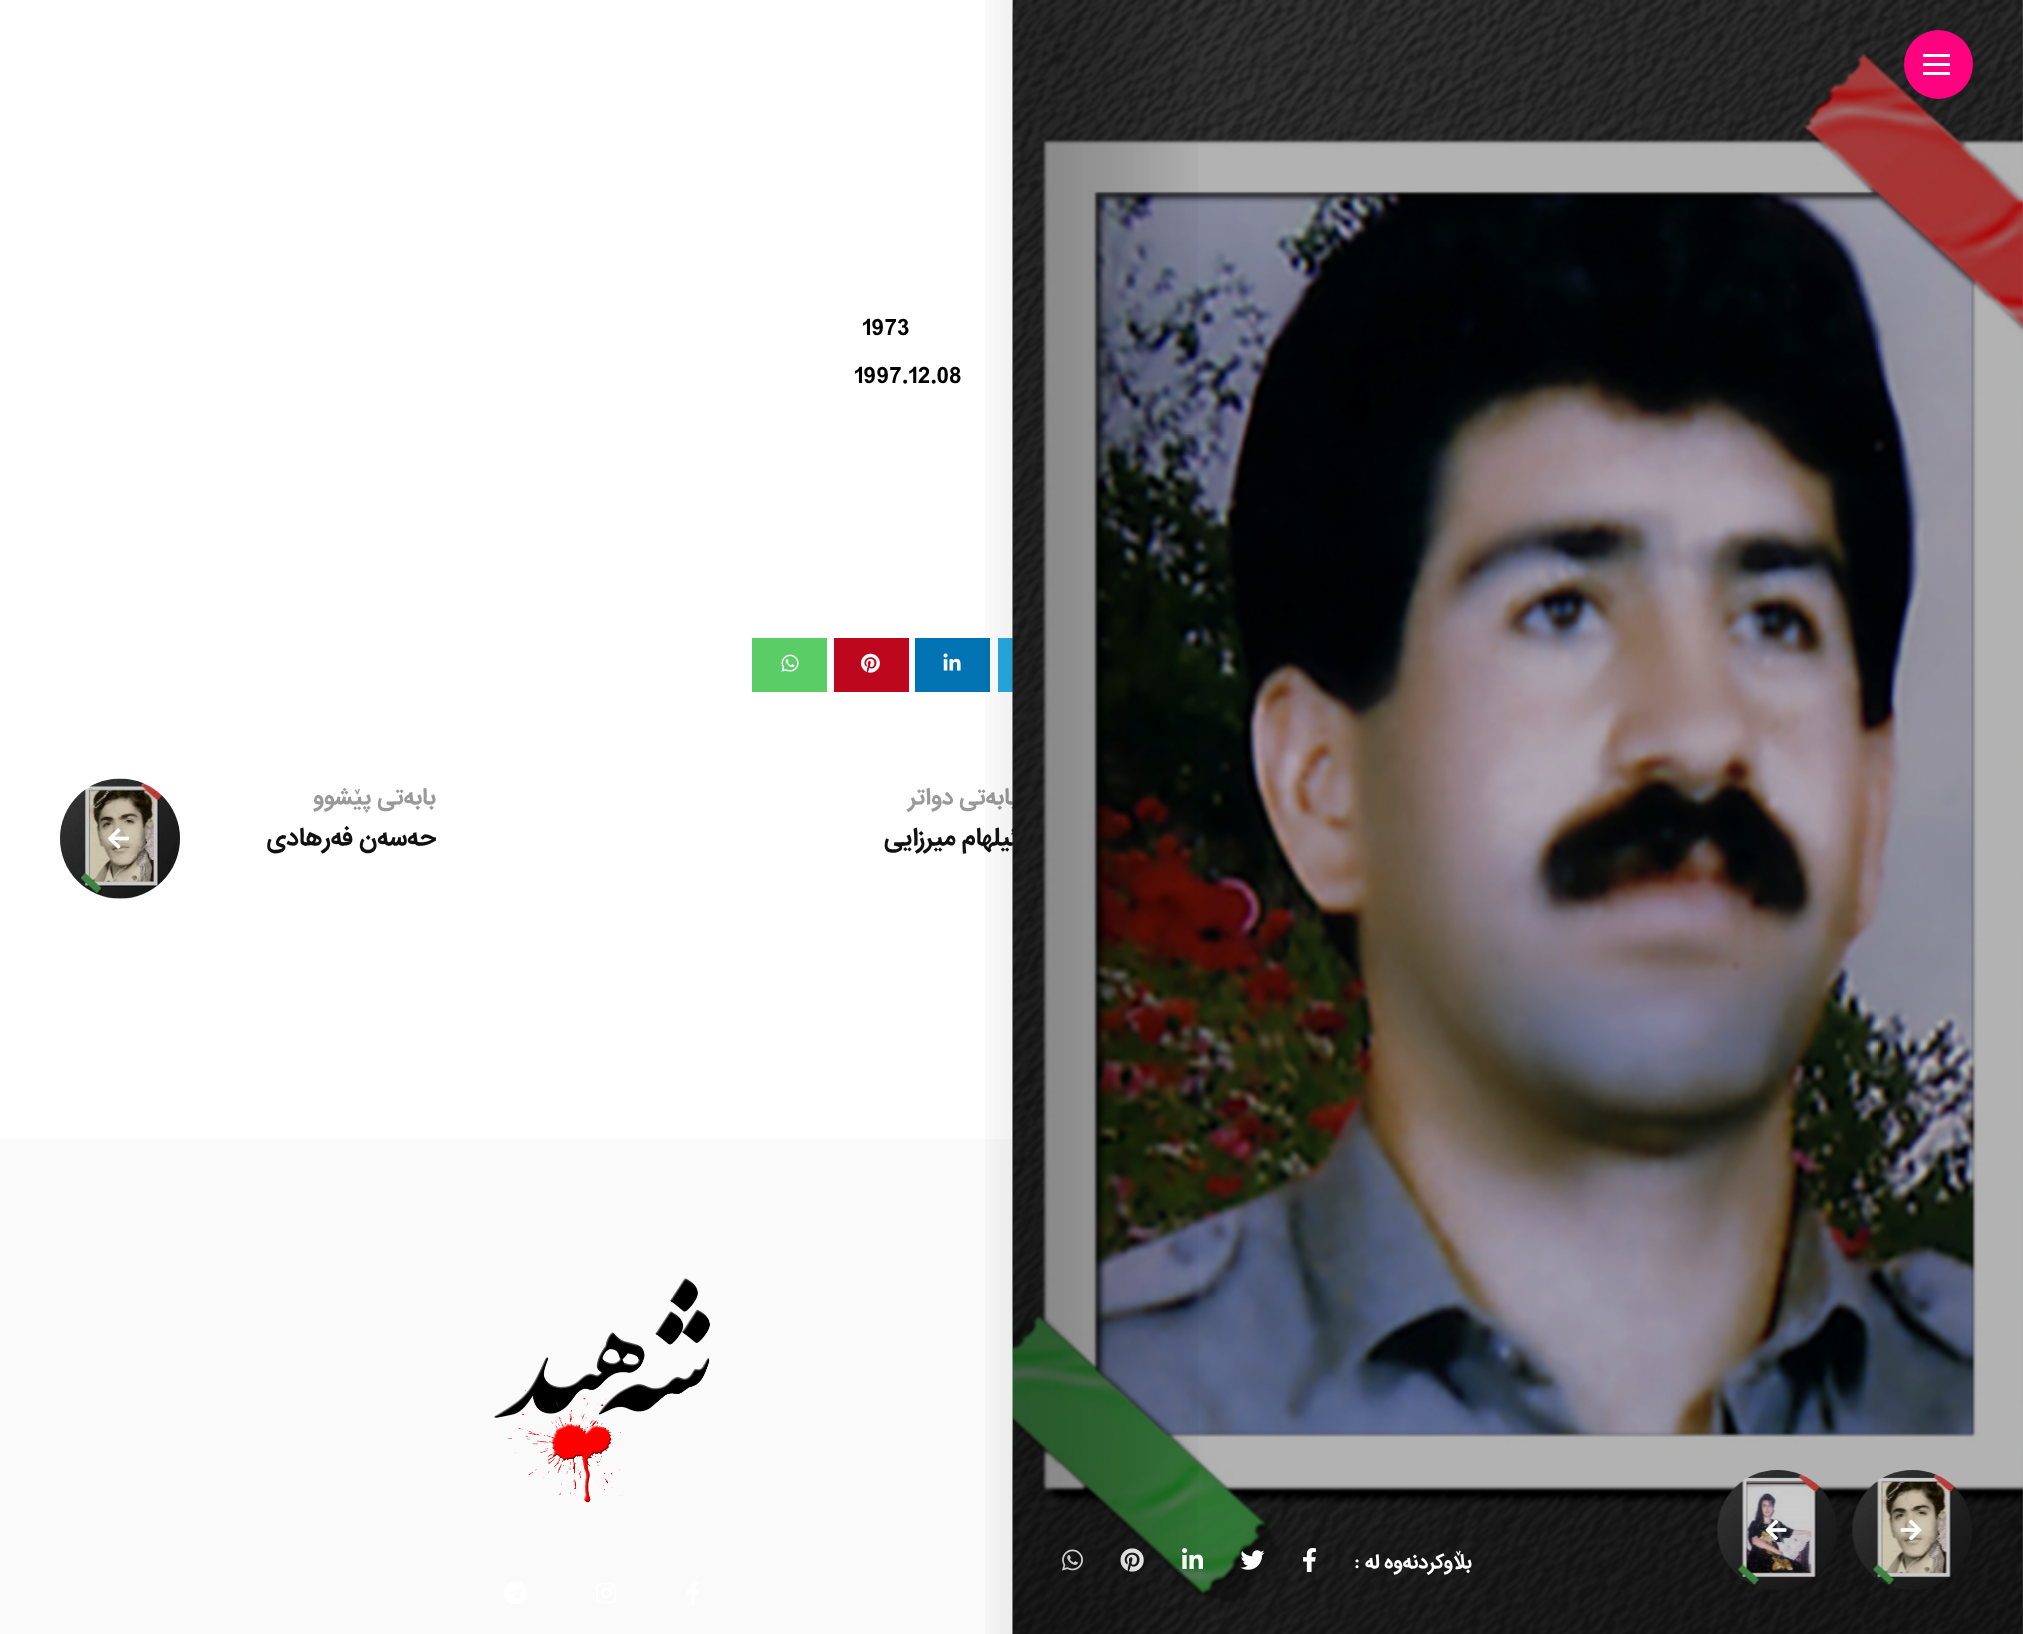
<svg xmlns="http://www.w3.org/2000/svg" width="2023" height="1634">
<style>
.a{font:bold 22.5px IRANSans;fill:#000}
.b{font:bold 21px IRANSans;direction:rtl;fill:#999}
.c{font:bold 22.5px IRANSans;direction:rtl;fill:#111}
.d{font:bold 18px IRANSans;direction:rtl;fill:#fff}
</style>
<rect width="100%" height="100%" fill="#fff"/>
<path fill="#28a9e0" d="M998 638h15v54H998z"/>
<path fill="#0274b3" d="M915 638h75v54H915z"/>
<image href="2.png" x="943" y="653" width="18" height="18"/>
<path fill="#bd071d" d="M834 638h75v54H834z"/>
<image href="3.png" x="861" y="653" width="19" height="20"/>
<path fill="#5acd66" d="M752 638h75v54H752z"/>
<image href="4.png" x="781" y="654" width="18" height="18"/>
<image href="5.png" x="60" y="778" width="120" height="121"/>
<circle fill="#00000033" cx="120" cy="839" r="60"/>
<image href="6.png" x="108" y="828" width="21" height="21"/>
<path fill="#fafafa" d="M0 1139h1013v495H0z"/>
<image href="7.png" x="494" y="1278" width="216" height="225"/>
<image href="8.png" x="687" y="1581" width="12" height="24"/>
<image href="9.png" x="596" y="1583" width="20" height="20"/>
<image href="10.png" x="504" y="1582" width="23" height="22"/>
<text class="a" x="862" y="335">1973</text>
<text class="a" x="854" y="383">1997.12.08</text>
<text class="b" x="1018" y="804">بابەتی دواتر</text>
<text class="c" x="1018" y="845">ئیلهام میرزایی</text>
<image href="1.png" x="985" y="0" width="28" height="1634"/>
<text class="b" x="436" y="804">بابەتی پێشوو</text>
<text class="c" x="436" y="845">حەسەن فەرهادی</text>
<image href="11.png" x="1012" y="0" width="1011" height="1634"/>
<image href="12.png" x="1013" y="0" width="1010" height="1634"/>
<path fill="#0000004d" d="M1013 0h1010v1634H1013z"/>
<circle fill="#ff027f" cx="1938.5" cy="64.5" r="34.5"/>
<path fill="#fff" d="M1923 54h27v3H1923z"/>
<path fill="#fff" d="M1923 63h27v3H1923z"/>
<path fill="#fff" d="M1923 72h27v3H1923z"/>
<image href="13.png" x="1852" y="1470" width="121" height="120"/>
<circle fill="#00000033" cx="1913" cy="1530" r="60"/>
<image href="14.png" x="1900" y="1519" width="22" height="22"/>
<image href="15.png" x="1717" y="1470" width="121" height="120"/>
<circle fill="#00000033" cx="1778" cy="1530" r="60"/>
<image href="16.png" x="1765" y="1519" width="22" height="22"/>
<text class="d" x="1472" y="1568">بڵاوکردنەوە لە :</text>
<image href="17.png" x="1303" y="1548" width="13" height="24"/>
<image href="18.png" x="1240" y="1550" width="25" height="20"/>
<image href="19.png" x="1182" y="1548" width="21" height="21"/>
<image href="20.png" x="1120" y="1548" width="24" height="24"/>
<image href="21.png" x="1062" y="1549" width="21" height="22"/>
<image href="22.png" x="1012" y="0" width="186" height="1634"/>
</svg>
